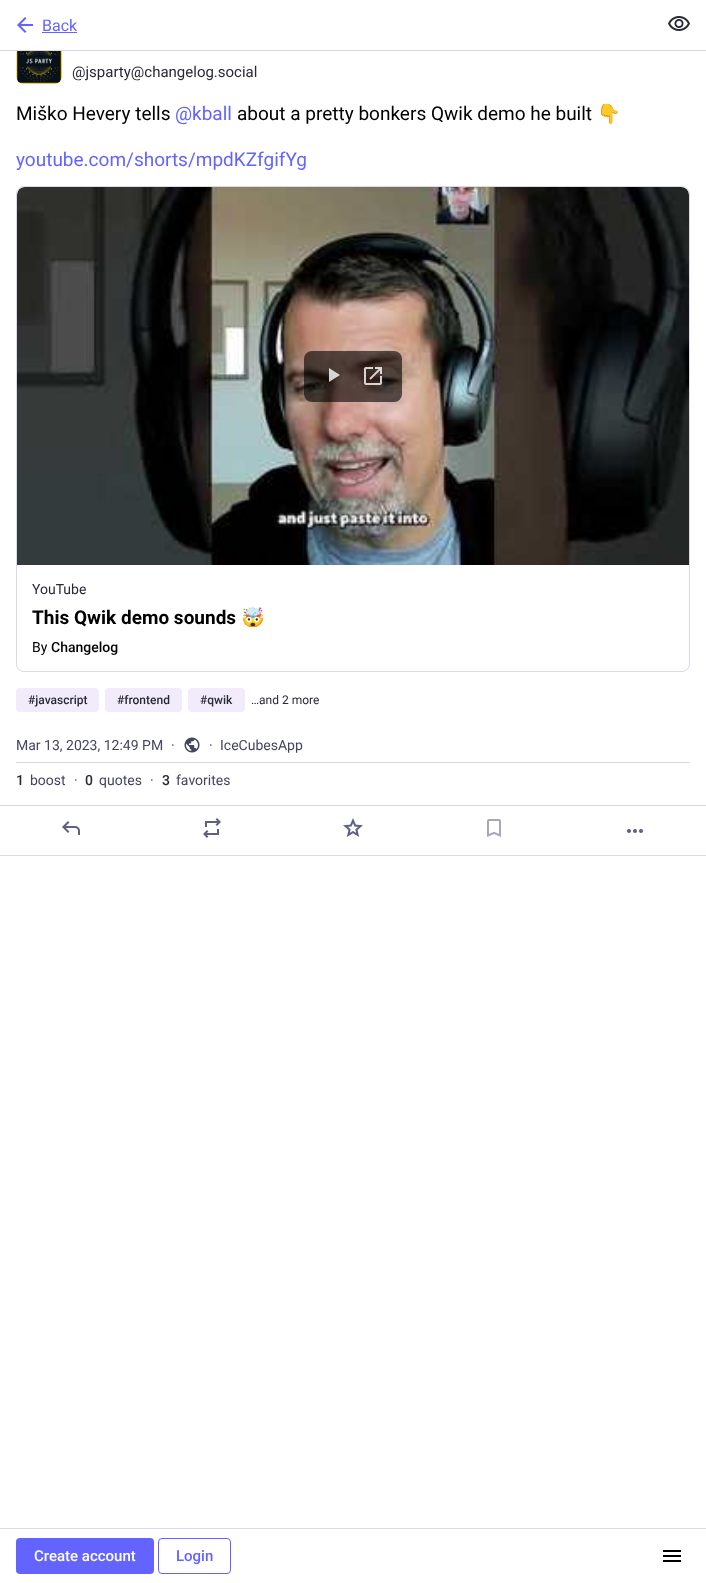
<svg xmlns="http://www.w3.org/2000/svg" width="706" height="1583">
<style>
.a{font:16px Roboto;fill:#6364ff}
.b{font:15px Roboto;fill:#292938}
.c{font:19px Roboto;fill:#000}
.d{font:19px Roboto;fill:#6364ff}
.e{font:19px Noto Color Emoji;fill:#000}
.f{font:14px Roboto;fill:#292938}
.g{font:bold 19px Roboto;fill:#000}
.h{font:bold 19px Noto Color Emoji;fill:#000}
.i{font:14px Roboto;fill:#000}
.j{font:500 14px Roboto;fill:#000}
.k{font:500 12px Roboto;fill:#292938}
.l{font:12px Roboto;fill:#292938}
.m{font:14px Roboto;fill:#45455f}
.n{font:500 14px Roboto;fill:#292938}
.o{font:500 15px Roboto;fill:#fff}
.p{font:500 15px Roboto;fill:#6364ff}
</style>
<rect width="100%" height="100%" fill="#fff"/>
<rect fill="#e8e6f0" x="16" y="38" width="46" height="46" rx="8"/>
<path fill="#fff" d="M16 38h46v12H16z"/>
<path fill="#d9d9e8" d="M0 50h706v1H0z"/>
<image href="1.png" x="17" y="17" width="16" height="16"/>
<path fill="#6364ff" d="M42 32h35v1H42z"/>
<image href="2.png" x="668" y="16" width="22" height="15"/>
<image href="3.png" x="16" y="51" width="46" height="33"/>
<rect fill="none" stroke="#d9d9e8" x="16.5" y="186.5" width="673" height="485" rx="7.5"/>
<image href="4.png" x="17" y="187" width="672" height="378"/>
<rect fill="#00000099" x="304" y="351" width="98" height="51" rx="8"/>
<path fill="#ffffffcc" d="M329 382v-14l11 7z"/>
<image href="5.png" x="364" y="367" width="18" height="18"/>
<rect fill="#f1ebfb" x="16" y="688" width="83" height="24" rx="4"/>
<rect fill="#f1ebfb" x="105" y="688" width="77" height="24" rx="4"/>
<rect fill="#f1ebfb" x="188" y="688" width="57" height="24" rx="4"/>
<path fill="#d9d9e8" d="M16 762h674v1H16z"/>
<image href="6.png" x="184" y="737" width="16" height="16"/>
<path fill="#d9d9e8" d="M0 805h706v1H0z"/>
<path fill="#d9d9e8" d="M0 855h706v1H0z"/>
<image href="7.png" x="62" y="821" width="18" height="14"/>
<image href="8.png" x="203" y="818" width="18" height="20"/>
<image href="9.png" x="343" y="818" width="20" height="19"/>
<image href="10.png" x="487" y="819" width="14" height="18"/>
<image href="11.png" x="627" y="829" width="16" height="4"/>
<path fill="#d9d9e8" d="M0 1528h706v1H0z"/>
<rect fill="#6364ff" x="16" y="1538" width="138" height="36" rx="4"/>
<rect fill="none" stroke="#6364ff" x="158.5" y="1538.5" width="72" height="35" rx="3.5"/>
<image href="12.png" x="663" y="1550" width="18" height="12"/>
<text class="a" x="42" y="31">Back</text>
<text class="b" x="72" y="77">@jsparty@changelog.social</text>
<text class="c" x="16" y="120">Miško Hevery tells</text>
<text class="d" x="175" y="120">@kball</text>
<text class="c" x="237" y="120">about a pretty bonkers Qwik demo he built</text>
<text class="e" x="597" y="120">👇</text>
<text class="d" x="16" y="166">youtube.com/shorts/mpdKZfgifYg</text>
<text class="f" x="32" y="594">YouTube</text>
<text class="g" x="32" y="624">This Qwik demo sounds</text>
<text class="h" x="241" y="624">🤯</text>
<text class="i" x="32" y="652">By</text>
<text class="j" x="51" y="652">Changelog</text>
<text class="k" x="28" y="704">#javascript</text>
<text class="k" x="117" y="704">#frontend</text>
<text class="k" x="200" y="704">#qwik</text>
<text class="l" x="251" y="704">…and 2 more</text>
<text class="m" x="16" y="750">Mar 13, 2023, 12:49 PM</text>
<text class="m" x="171" y="750">·</text>
<text class="m" x="209" y="750">·</text>
<text class="m" x="220" y="750">IceCubesApp</text>
<text class="n" x="16" y="785">1</text>
<text class="m" x="30" y="785">boost</text>
<text class="m" x="74" y="785">·</text>
<text class="n" x="85" y="785">0</text>
<text class="m" x="99" y="785">quotes</text>
<text class="m" x="150" y="785">·</text>
<text class="n" x="162" y="785">3</text>
<text class="m" x="176" y="785">favorites</text>
<text class="o" x="34" y="1561">Create account</text>
<text class="p" x="176" y="1561">Login</text>
</svg>
